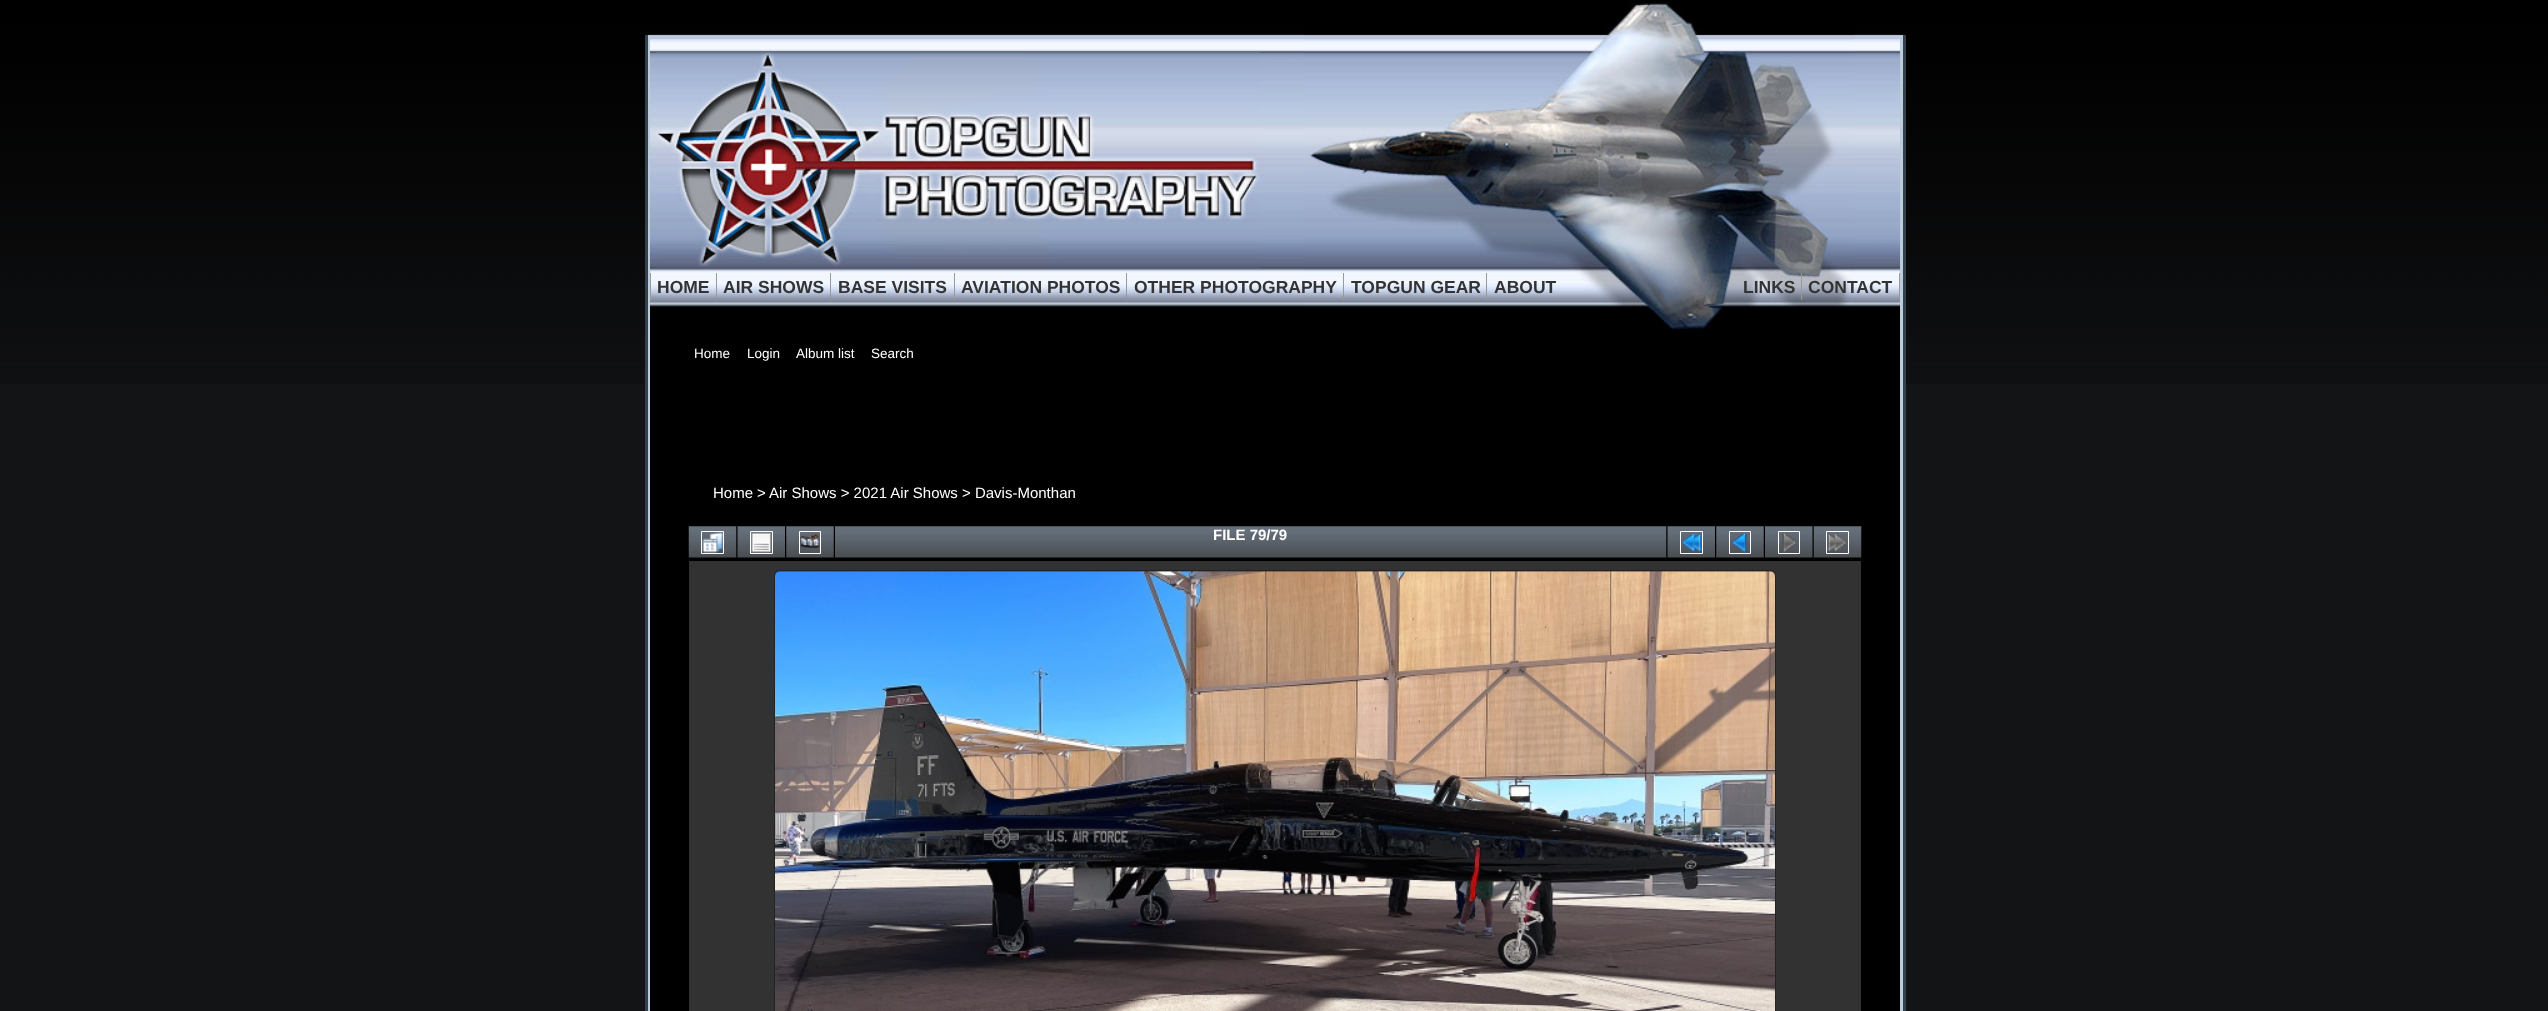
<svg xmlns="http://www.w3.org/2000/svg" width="2548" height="1011">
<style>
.a{font:bold 17.5px Liberation Sans;fill:#333}
.b{font:13.5px Liberation Sans;fill:#fff}
.c{font:15px Liberation Sans;fill:#fff}
.d{font:bold 15px Liberation Sans;fill:#fff}
</style>
<rect width="100%" height="100%" fill="#131416"/>
<image href="1.png" x="0" y="0" width="2548" height="384"/>
<path fill="#34404b" d="M1903 35h3v976H1903z"/>
<path fill="#34404b" d="M645 35h3v976H645z"/>
<path fill="none" stroke="#bcd" stroke-width="3" d="M649.5 36.5h1252v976H649.5z"/>
<path fill="#000" d="M650 35h1250v976H650z"/>
<image href="2.png" x="650" y="34" width="1250" height="273"/>
<image href="3.png" x="656" y="52" width="604" height="216"/>
<image href="4.png" x="1304" y="0" width="550" height="330"/>
<path fill="#999" d="M650 273h1v27H650z"/>
<path fill="#999" d="M716 273h1v27H716z"/>
<path fill="#999" d="M830 273h1v27H830z"/>
<path fill="#999" d="M954 273h1v27H954z"/>
<path fill="#999" d="M1126 273h1v27H1126z"/>
<path fill="#999" d="M1343 273h1v27H1343z"/>
<path fill="#999" d="M1486 273h1v27H1486z"/>
<path fill="#999" d="M1899 273h1v27H1899z"/>
<path fill="#999" d="M1801 273h1v27H1801z"/>
<image href="5.png" x="688" y="526" width="49" height="32"/>
<path fill="none" stroke="#fff" d="M701.5 531.5h22v22H701.5z"/>
<image href="6.png" x="702" y="532" width="21" height="21"/>
<image href="7.png" x="737" y="526" width="48" height="32"/>
<path fill="none" stroke="#fff" d="M750.5 531.5h22v22H750.5z"/>
<image href="8.png" x="751" y="532" width="21" height="21"/>
<image href="9.png" x="786" y="526" width="48" height="32"/>
<path fill="none" stroke="#fff" d="M799.5 531.5h21v22H799.5z"/>
<image href="10.png" x="800" y="533" width="20" height="16"/>
<image href="11.png" x="835" y="526" width="832" height="32"/>
<image href="7.png" x="1667" y="526" width="48" height="32"/>
<path fill="none" stroke="#fff" d="M1680.5 531.5h22v22H1680.5z"/>
<image href="12.png" x="1681" y="532" width="21" height="21"/>
<image href="9.png" x="1716" y="526" width="48" height="32"/>
<path fill="none" stroke="#fff" d="M1729.5 531.5h21v22H1729.5z"/>
<image href="13.png" x="1731" y="532" width="16" height="21"/>
<image href="14.png" x="1765" y="526" width="48" height="32"/>
<path fill="none" stroke="#fff" d="M1778.5 531.5h21v22H1778.5z"/>
<image href="15.png" x="1782" y="532" width="15" height="21"/>
<image href="5.png" x="1813" y="526" width="49" height="32"/>
<path fill="none" stroke="#fff" d="M1826.5 531.5h22v22H1826.5z"/>
<image href="16.png" x="1827" y="532" width="21" height="20"/>
<path fill="#323232" d="M689 561h1172v450H689z"/>
<rect fill="none" stroke="#232323" x="774.5" y="570.5" width="1001" height="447" rx="5.5"/>
<image href="17.png" x="775" y="571" width="1000" height="440"/>
<text class="a" x="657" y="293">HOME</text>
<text class="a" x="723" y="293">AIR SHOWS</text>
<text class="a" x="838" y="293">BASE VISITS</text>
<text class="a" x="961" y="293">AVIATION PHOTOS</text>
<text class="a" x="1134" y="293">OTHER PHOTOGRAPHY</text>
<text class="a" x="1351" y="293">TOPGUN GEAR</text>
<text class="a" x="1494" y="293">ABOUT</text>
<text class="a" x="1743" y="293">LINKS</text>
<text class="a" x="1808" y="293">CONTACT</text>
<text class="b" x="694" y="358">Home</text>
<text class="b" x="747" y="358">Login</text>
<text class="b" x="796" y="358">Album list</text>
<text class="b" x="871" y="358">Search</text>
<text class="c" x="713" y="498">Home</text>
<text class="c" x="757" y="498">&gt;</text>
<text class="c" x="769" y="498">Air Shows &gt; 2021 Air Shows &gt; Davis-Monthan</text>
<text class="d" x="1213" y="540">FILE 79/79</text>
</svg>
